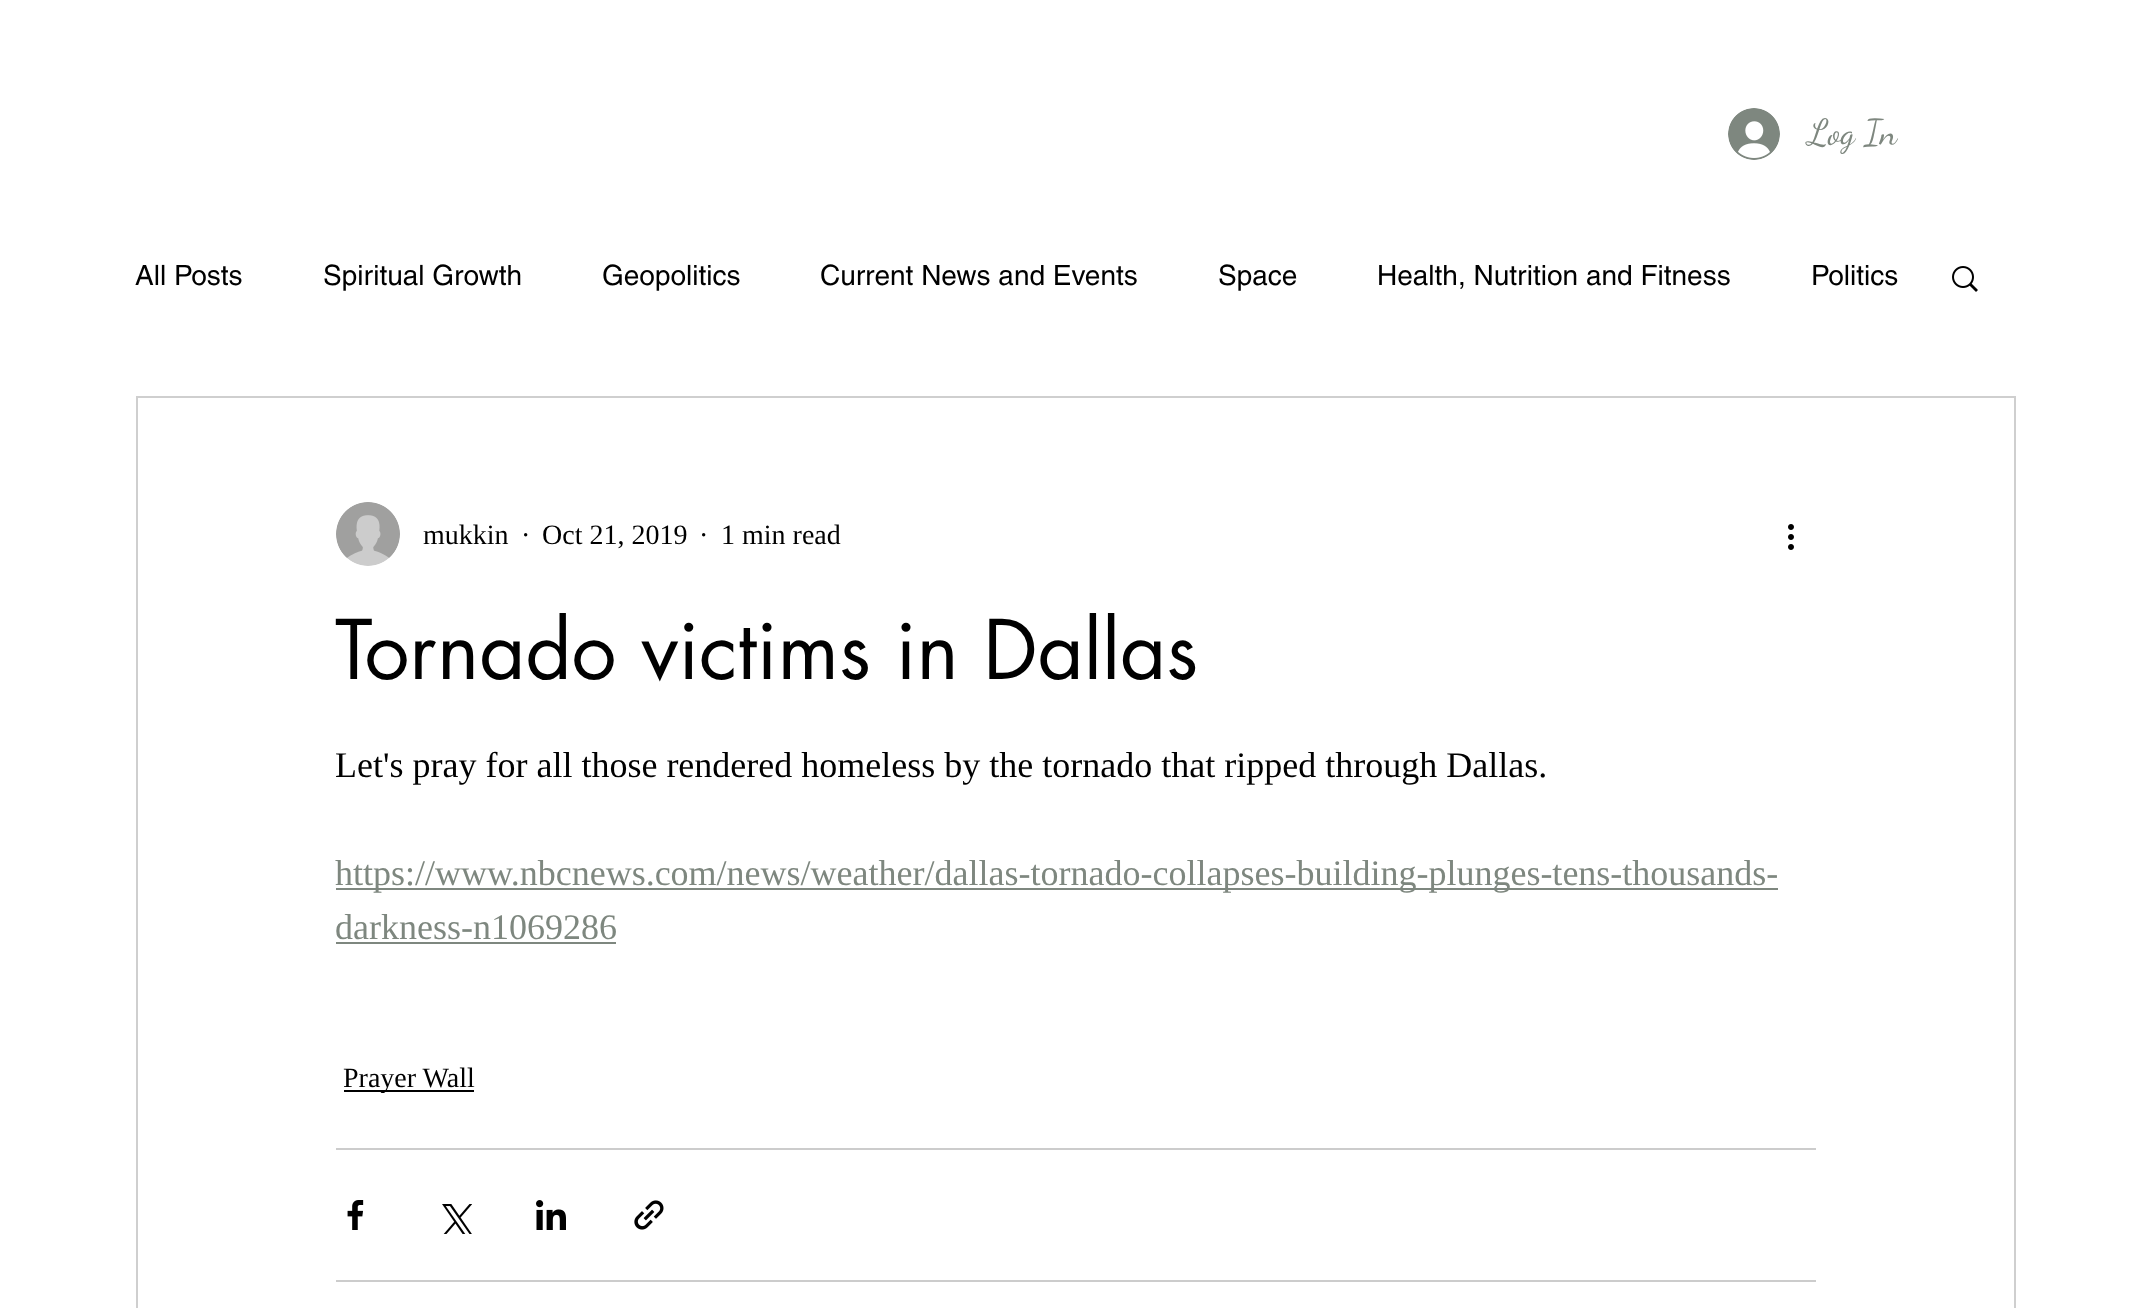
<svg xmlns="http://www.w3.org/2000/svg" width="2149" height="1308">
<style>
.a{font:36px Dancing Script;fill:#7e877f}
.b{font:28px helvetica;fill:#000}
.c{font:28px Liberation Serif;fill:#000}
.d{font:80px futura;fill:#000}
.e{font:36px Liberation Serif;fill:#000}
.f{font:36px Liberation Serif;fill:#7e877f}
</style>
<rect width="100%" height="100%" fill="#fff"/>
<image href="1.png" x="1728" y="108" width="52" height="52"/>
<image href="2.png" x="1952" y="266" width="26" height="26"/>
<path fill="none" stroke="#cfcfcf" stroke-width="2" d="M137 397h1878v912H137z"/>
<image href="3.png" x="336" y="502" width="64" height="64"/>
<image href="4.png" x="1788" y="524" width="6" height="26"/>
<path fill="#7e877f" d="M336 888h1442v2H336z"/>
<path fill="#7e877f" d="M336 942h280v2H336z"/>
<path fill="#000" d="M344 1090h130v2H344z"/>
<path fill="#ccc" d="M336 1148h1480v2H336z"/>
<image href="5.png" x="347" y="1200" width="17" height="30"/>
<image href="6.png" x="442" y="1204" width="30" height="30"/>
<image href="7.png" x="536" y="1200" width="30" height="30"/>
<image href="8.png" x="634" y="1200" width="30" height="30"/>
<path fill="#ccc" d="M336 1280h1480v2H336z"/>
<text class="a" x="1808" y="144">Log In</text>
<text class="b" x="135" y="285">All Posts</text>
<text class="b" x="323" y="285">Spiritual Growth</text>
<text class="b" x="602" y="285">Geopolitics</text>
<text class="b" x="820" y="285">Current News and Events</text>
<text class="b" x="1218" y="285">Space</text>
<text class="b" x="1377" y="285">Health, Nutrition and Fitness</text>
<text class="b" x="1811" y="285">Politics</text>
<text class="c" x="423" y="544">mukkin</text>
<text class="c" x="521" y="544">·</text>
<text class="c" x="542" y="544">Oct 21, 2019</text>
<text class="c" x="699" y="544">·</text>
<text class="c" x="721" y="544">1 min read</text>
<text class="d" x="335" y="679">Tornado victims in Dallas</text>
<text class="e" x="335" y="777">Let's pray for all those rendered homeless by the tornado that ripped through Dallas.</text>
<text class="f" x="335" y="885">https://www.nbcnews.com/news/weather/dallas-tornado-collapses-building-plunges-tens-thousands-</text>
<text class="f" x="335" y="939">darkness-n1069286</text>
<text class="c" x="343" y="1087">Prayer Wall</text>
</svg>
